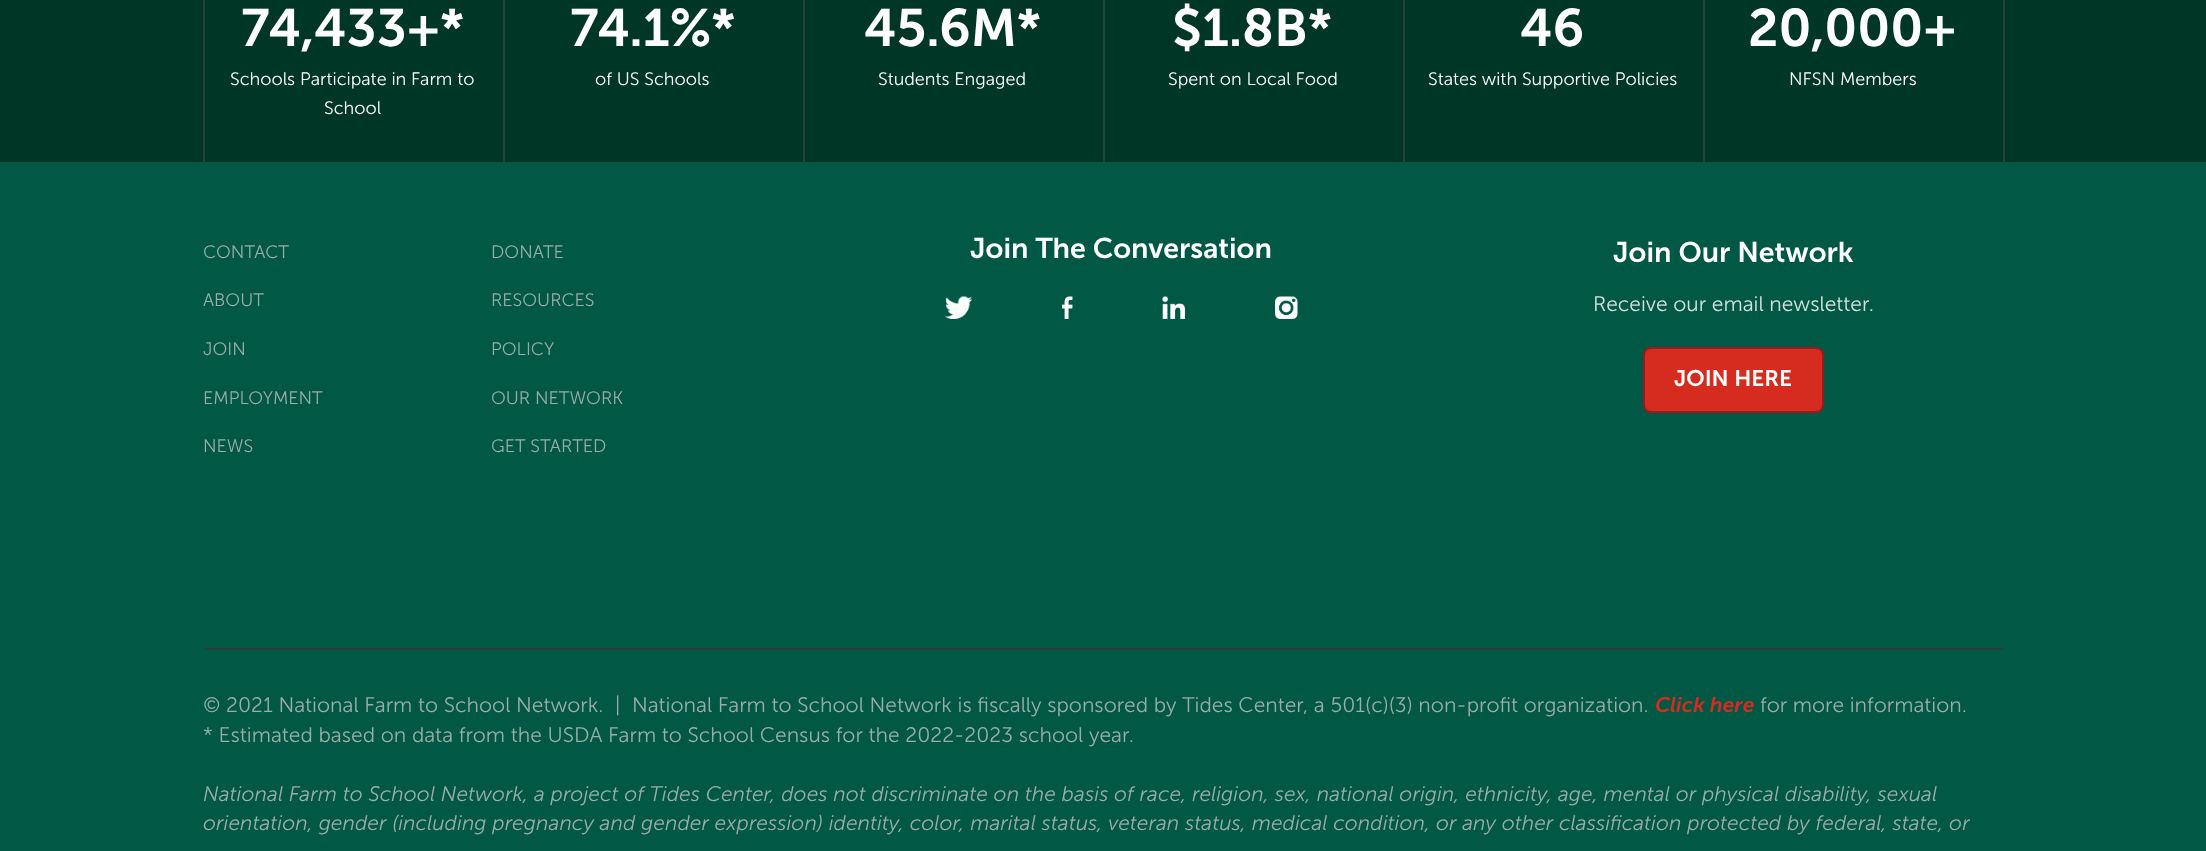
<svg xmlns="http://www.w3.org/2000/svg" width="2206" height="851">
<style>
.a{font:600 52.5px 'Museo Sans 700';fill:#fff}
.b{font:300 18px 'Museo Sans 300';fill:#fff}
.c{font:300 18px 'Museo Sans 300';fill:#9baca9}
.d{font:600 28.5px 'Museo Sans 700';fill:#fff}
.e{font:300 21px 'Museo Sans 300';fill:#d6e0de}
.f{font:600 22.5px 'Museo Sans 700';fill:#fff}
.g{font:300 21px 'Museo Sans 300';fill:#9baca9}
.h{font:italic 600 21px 'Museo Sans 700';fill:#d62c20}
.i{font:italic 300 21px 'Museo Sans 300';fill:#9baca9}
</style>
<rect width="100%" height="100%" fill="#005845"/>
<path fill="#003625" d="M0 0h2206v162H0z"/>
<path fill="#284039" d="M503 0h2v162H503z"/>
<path fill="#284039" d="M203 0h2v162H203z"/>
<path fill="#284039" d="M803 0h2v162H803z"/>
<path fill="#284039" d="M1103 0h2v162H1103z"/>
<path fill="#284039" d="M1403 0h2v162H1403z"/>
<path fill="#284039" d="M1703 0h2v162H1703z"/>
<path fill="#284039" d="M2003 0h2v162H2003z"/>
<image href="1.png" x="945" y="296" width="27" height="23"/>
<image href="2.png" x="1062" y="296" width="11" height="23"/>
<image href="3.png" x="1162" y="296" width="23" height="23"/>
<image href="4.png" x="1275" y="296" width="23" height="23"/>
<rect fill="#d62c20" stroke="#9d1922" stroke-width="2" x="1644" y="348" width="179" height="64" rx="7"/>
<path fill="#284039" d="M204 648h1800v2H204z"/>
<text class="a" x="241" y="46">74,433+*</text>
<text class="b" x="230" y="85">Schools Participate in Farm to</text>
<text class="b" x="324" y="114">School</text>
<text class="a" x="570" y="46">74.1%*</text>
<text class="b" x="595" y="85">of US Schools</text>
<text class="a" x="864" y="46">45.6M*</text>
<text class="b" x="878" y="85">Students Engaged</text>
<text class="a" x="1172" y="46">$1.8B*</text>
<text class="b" x="1168" y="85">Spent on Local Food</text>
<text class="a" x="1520" y="46">46</text>
<text class="b" x="1428" y="85">States with Supportive Policies</text>
<text class="a" x="1748" y="46">20,000+</text>
<text class="b" x="1789" y="85">NFSN Members</text>
<text class="c" x="203" y="258">CONTACT</text>
<text class="c" x="491" y="258">DONATE</text>
<text class="c" x="203" y="306">ABOUT</text>
<text class="c" x="491" y="306">RESOURCES</text>
<text class="c" x="203" y="355">JOIN</text>
<text class="c" x="491" y="355">POLICY</text>
<text class="c" x="203" y="404">EMPLOYMENT</text>
<text class="c" x="491" y="404">OUR NETWORK</text>
<text class="c" x="203" y="452">NEWS</text>
<text class="c" x="491" y="452">GET STARTED</text>
<text class="d" x="970" y="258">Join The Conversation</text>
<text class="d" x="1613" y="262">Join Our Network</text>
<text class="e" x="1593" y="311">Receive our email newsletter.</text>
<text class="f" x="1674" y="386">JOIN HERE</text>
<text class="g" xml:space="preserve" x="203" y="712">© 2021 National Farm to School Network.  |  National Farm to School Network is fiscally sponsored by Tides Center, a 501(c)(3) non-profit organization.</text>
<text class="h" x="1655" y="712">Click here</text>
<text class="g" x="1760" y="712">for more information.</text>
<text class="g" x="203" y="742">* Estimated based on data from the USDA Farm to School Census for the 2022-2023 school year.</text>
<text class="i" x="203" y="801">National Farm to School Network, a project of Tides Center, does not discriminate on the basis of race, religion, sex, national origin, ethnicity, age, mental or physical disability, sexual</text>
<text class="i" x="203" y="830">orientation, gender (including pregnancy and gender expression) identity, color, marital status, veteran status, medical condition, or any other classification protected by federal, state, or</text>
</svg>
